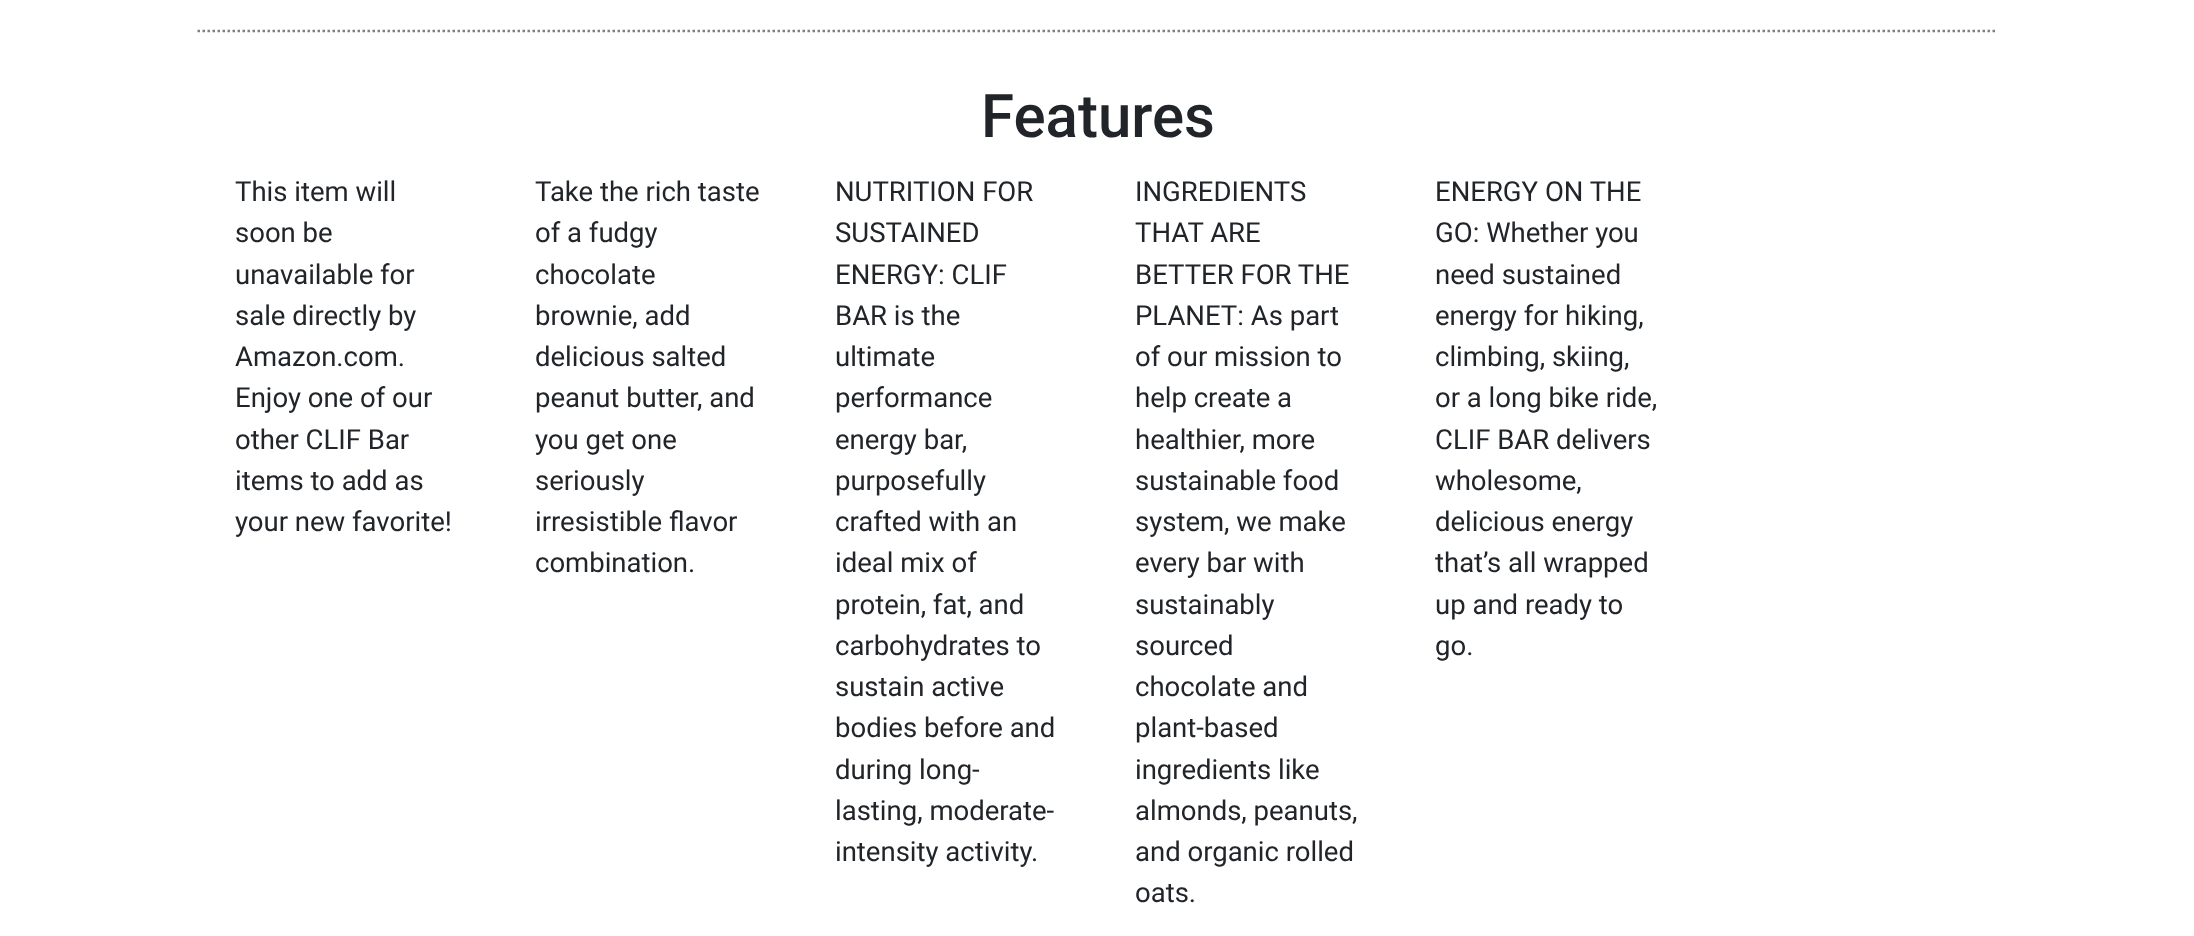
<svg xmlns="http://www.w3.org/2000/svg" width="2194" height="936">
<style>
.a{font:500 60px Roboto;fill:#212529}
.b{font:27.5px Roboto;fill:#212529}
</style>
<rect width="100%" height="100%" fill="#fff"/>
<path fill="none" stroke="#808080" stroke-width="2.5" stroke-dasharray="2.5 2.5" d="M197.5 31h1800"/>
<text class="a" x="981" y="137">Features</text>
<text class="b" x="235" y="201">This item will</text>
<text class="b" x="235" y="242">soon be</text>
<text class="b" x="235" y="284">unavailable for</text>
<text class="b" x="235" y="325">sale directly by</text>
<text class="b" x="235" y="366">Amazon.com.</text>
<text class="b" x="235" y="407">Enjoy one of our</text>
<text class="b" x="235" y="449">other CLIF Bar</text>
<text class="b" x="235" y="490">items to add as</text>
<text class="b" x="235" y="531">your new favorite!</text>
<text class="b" x="535" y="201">Take the rich taste</text>
<text class="b" x="535" y="242">of a fudgy</text>
<text class="b" x="535" y="284">chocolate</text>
<text class="b" x="535" y="325">brownie, add</text>
<text class="b" x="535" y="366">delicious salted</text>
<text class="b" x="535" y="407">peanut butter, and</text>
<text class="b" x="535" y="449">you get one</text>
<text class="b" x="535" y="490">seriously</text>
<text class="b" x="535" y="531">irresistible flavor</text>
<text class="b" x="535" y="572">combination.</text>
<text class="b" x="835" y="201">NUTRITION FOR</text>
<text class="b" x="835" y="242">SUSTAINED</text>
<text class="b" x="835" y="284">ENERGY: CLIF</text>
<text class="b" x="835" y="325">BAR is the</text>
<text class="b" x="835" y="366">ultimate</text>
<text class="b" x="835" y="407">performance</text>
<text class="b" x="835" y="449">energy bar,</text>
<text class="b" x="835" y="490">purposefully</text>
<text class="b" x="835" y="531">crafted with an</text>
<text class="b" x="835" y="572">ideal mix of</text>
<text class="b" x="835" y="614">protein, fat, and</text>
<text class="b" x="835" y="655">carbohydrates to</text>
<text class="b" x="835" y="696">sustain active</text>
<text class="b" x="835" y="737">bodies before and</text>
<text class="b" x="835" y="779">during long-</text>
<text class="b" x="835" y="820">lasting, moderate-</text>
<text class="b" x="835" y="861">intensity activity.</text>
<text class="b" x="1135" y="201">INGREDIENTS</text>
<text class="b" x="1135" y="242">THAT ARE</text>
<text class="b" x="1135" y="284">BETTER FOR THE</text>
<text class="b" x="1135" y="325">PLANET: As part</text>
<text class="b" x="1135" y="366">of our mission to</text>
<text class="b" x="1135" y="407">help create a</text>
<text class="b" x="1135" y="449">healthier, more</text>
<text class="b" x="1135" y="490">sustainable food</text>
<text class="b" x="1135" y="531">system, we make</text>
<text class="b" x="1135" y="572">every bar with</text>
<text class="b" x="1135" y="614">sustainably</text>
<text class="b" x="1135" y="655">sourced</text>
<text class="b" x="1135" y="696">chocolate and</text>
<text class="b" x="1135" y="737">plant-based</text>
<text class="b" x="1135" y="779">ingredients like</text>
<text class="b" x="1135" y="820">almonds, peanuts,</text>
<text class="b" x="1135" y="861">and organic rolled</text>
<text class="b" x="1135" y="902">oats.</text>
<text class="b" x="1435" y="201">ENERGY ON THE</text>
<text class="b" x="1435" y="242">GO: Whether you</text>
<text class="b" x="1435" y="284">need sustained</text>
<text class="b" x="1435" y="325">energy for hiking,</text>
<text class="b" x="1435" y="366">climbing, skiing,</text>
<text class="b" x="1435" y="407">or a long bike ride,</text>
<text class="b" x="1435" y="449">CLIF BAR delivers</text>
<text class="b" x="1435" y="490">wholesome,</text>
<text class="b" x="1435" y="531">delicious energy</text>
<text class="b" x="1435" y="572">that’s all wrapped</text>
<text class="b" x="1435" y="614">up and ready to</text>
<text class="b" x="1435" y="655">go.</text>
</svg>
